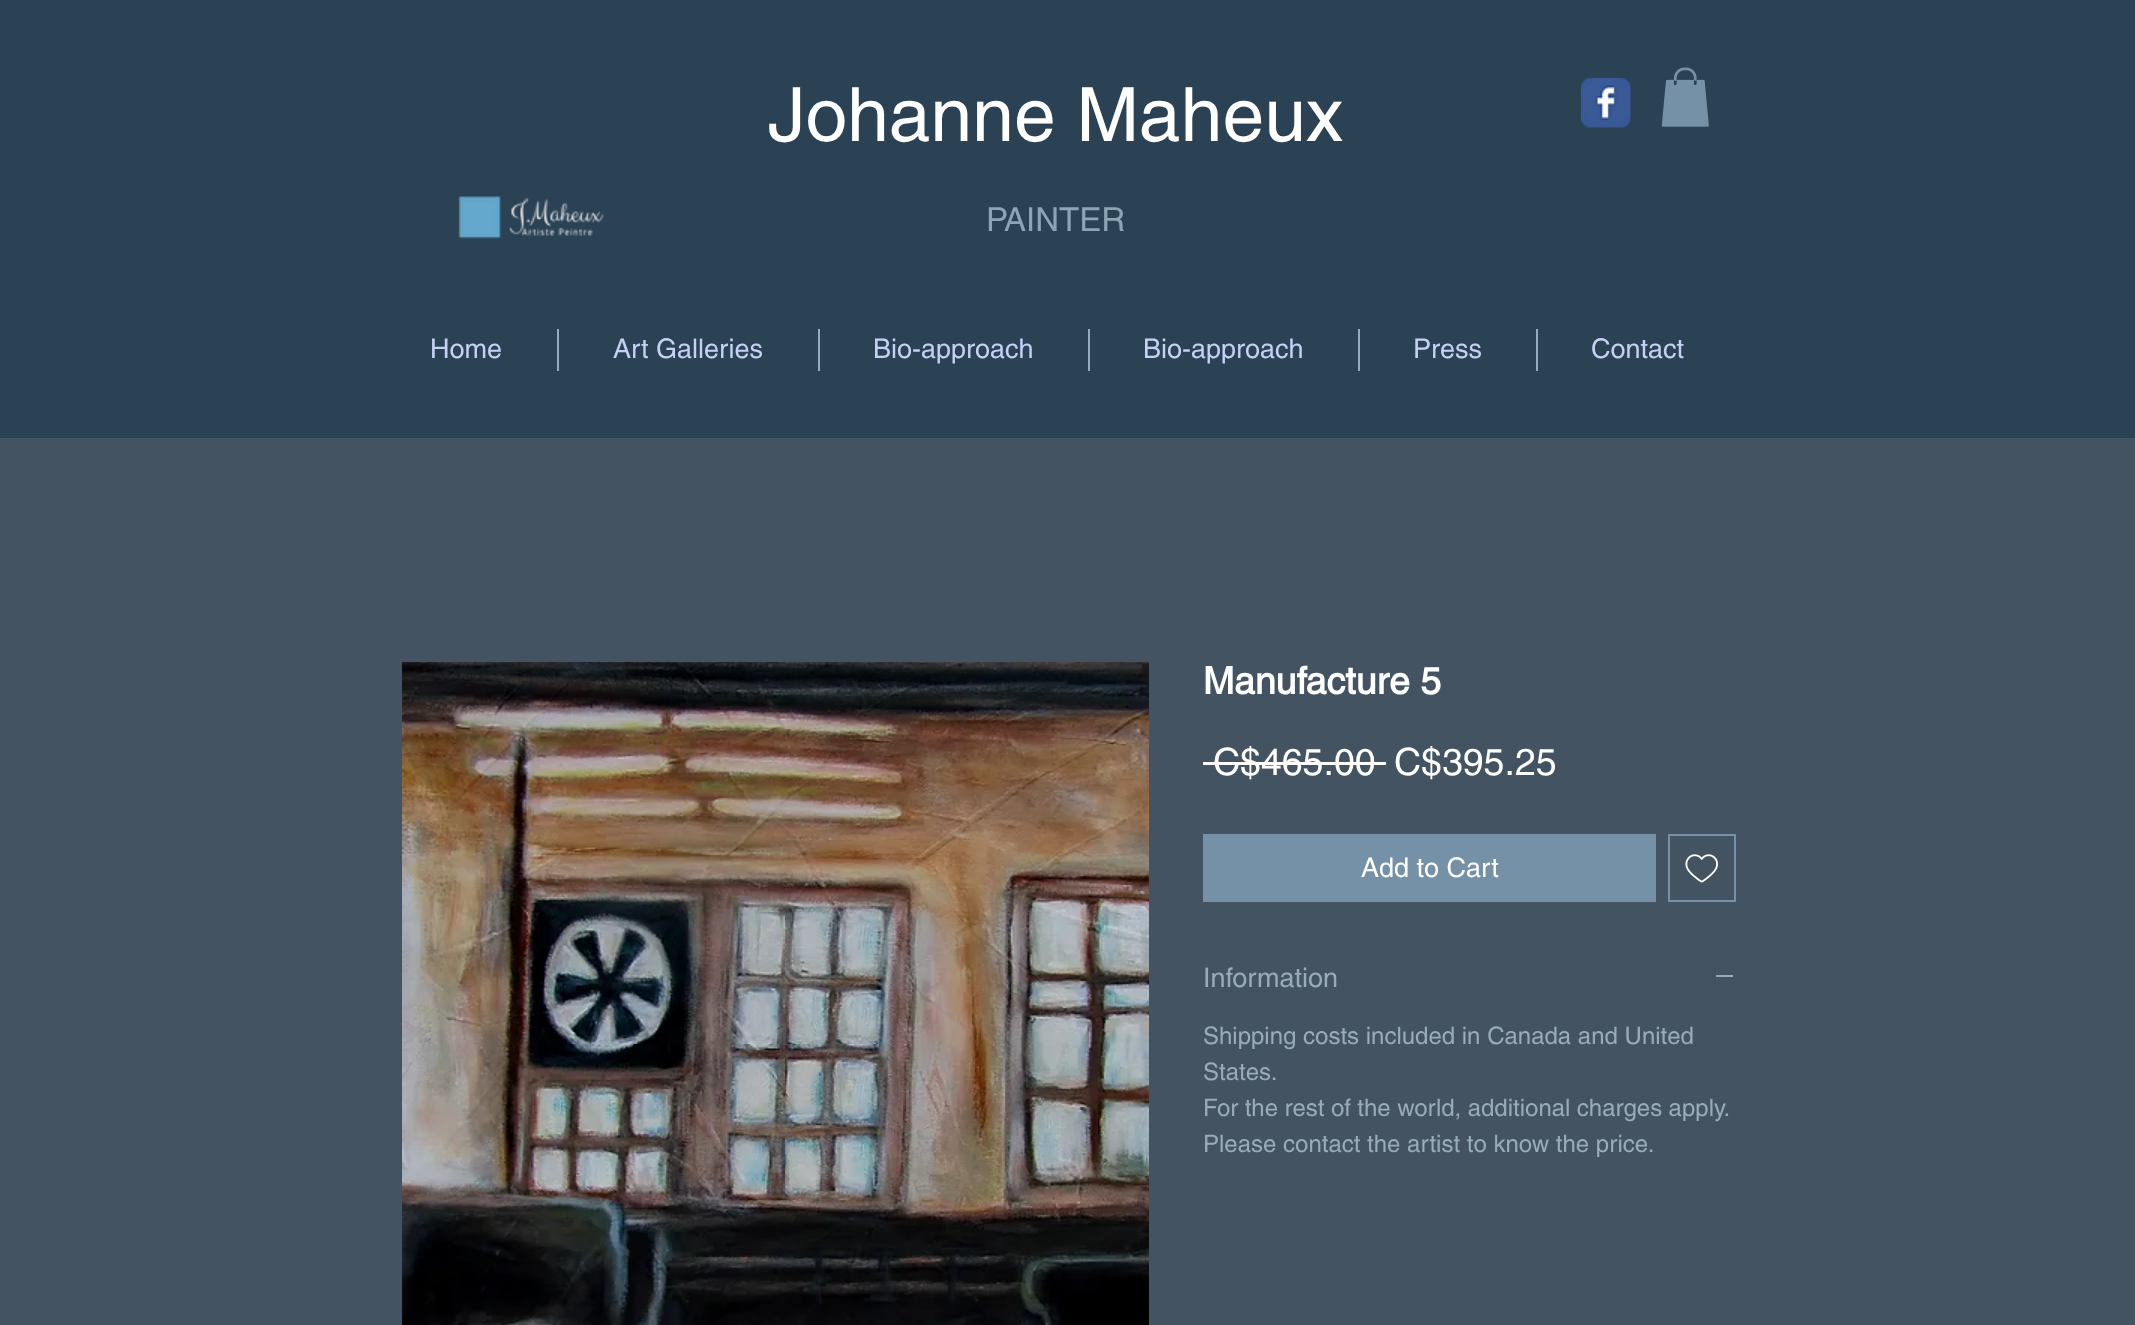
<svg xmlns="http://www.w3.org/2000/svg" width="2135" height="1325">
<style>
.a{font:75px helvetica;fill:#fff}
.b{font:33px helvetica;fill:#8da4b4}
.c{font:27px helvetica;fill:#c4d1f5}
.d{font:bold 37.5px helvetica;fill:#fff}
.e{font:37.5px helvetica;fill:#fff}
.f{font:27px helvetica;fill:#fff}
.g{font:27px helvetica;fill:#97abba}
.h{font:24px helvetica;fill:#97abba}
</style>
<rect width="100%" height="100%" fill="#435361"/>
<path fill="#2b4154" d="M0 0h2135v438H0z"/>
<image href="1.png" x="1581" y="78" width="50" height="50"/>
<image href="2.png" x="1661" y="67" width="48" height="60"/>
<image href="3.png" x="458" y="196" width="147" height="43"/>
<path fill="#97abba" d="M557 329h2v42H557z"/>
<path fill="#97abba" d="M818 329h2v42H818z"/>
<path fill="#97abba" d="M1088 329h2v42H1088z"/>
<path fill="#97abba" d="M1358 329h2v42H1358z"/>
<path fill="#97abba" d="M1536 329h2v42H1536z"/>
<image href="4.png" x="402" y="662" width="747" height="663"/>
<path fill="#fff" d="M1203 762h183v3H1203z"/>
<path fill="#7491a8" d="M1203 834h453v68H1203z"/>
<path fill="none" stroke="#7491a8" stroke-width="2" d="M1669 835h66v66H1669z"/>
<image href="5.png" x="1685" y="854" width="33" height="29"/>
<path fill="#97abba" d="M1716 975h17v2H1716z"/>
<text class="a" x="768" y="141">Johanne Maheux</text>
<text class="b" x="986" y="231">PAINTER</text>
<text class="c" x="430" y="358">Home</text>
<text class="c" x="613" y="358">Art Galleries</text>
<text class="c" x="873" y="358">Bio-approach</text>
<text class="c" x="1143" y="358">Bio-approach</text>
<text class="c" x="1413" y="358">Press</text>
<text class="c" x="1591" y="358">Contact</text>
<text class="d" x="1203" y="694">Manufacture 5</text>
<text class="e" x="1213" y="775">C$465.00</text>
<text class="e" x="1394" y="775">C$395.25</text>
<text class="f" x="1361" y="877">Add to Cart</text>
<text class="g" x="1203" y="987">Information</text>
<text class="h" x="1203" y="1044">Shipping costs included in Canada and United</text>
<text class="h" x="1203" y="1080">States.</text>
<text class="h" x="1203" y="1116" word-spacing="-0.25">For the rest of the world, additional charges apply.</text>
<text class="h" x="1203" y="1152">Please contact the artist to know the price.</text>
</svg>
